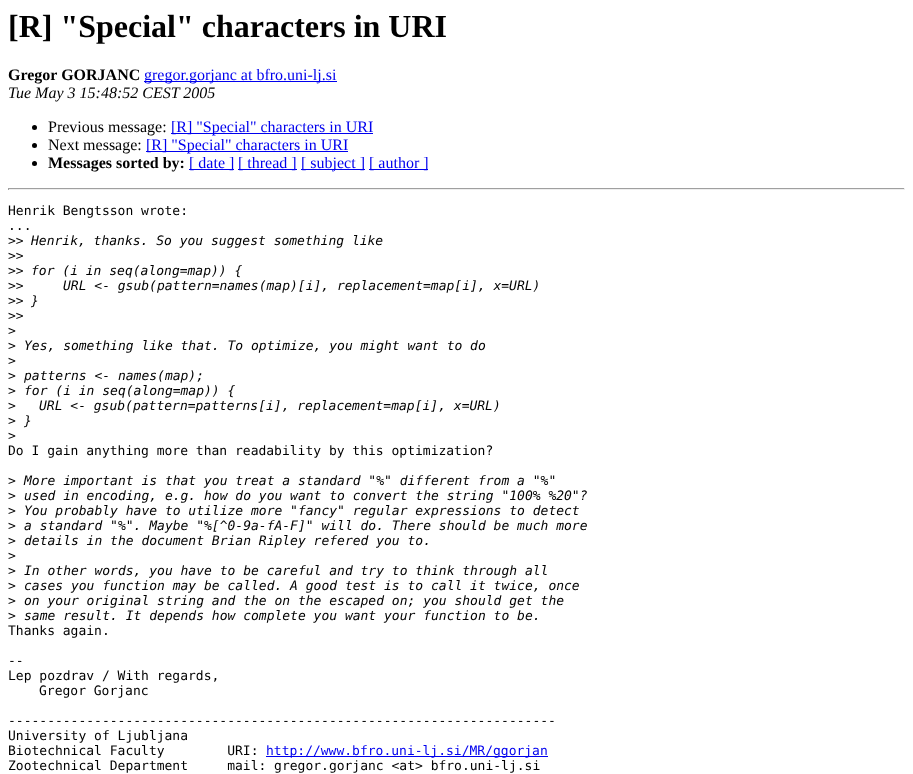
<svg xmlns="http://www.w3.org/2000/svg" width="913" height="774">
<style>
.a{font:bold 32px Liberation Serif;fill:#000}
.b{font:bold 16px Liberation Serif;fill:#000}
.c{font:16px Liberation Serif;fill:#00e}
.d{font:italic 16px Liberation Serif;fill:#000}
.e{font:16px Liberation Serif;fill:#000}
.f{font:13px DejaVu Sans Mono;fill:#000}
.g{font:italic 13px DejaVu Sans Mono;fill:#000}
.h{font:13px DejaVu Sans Mono;fill:#00e}
</style>
<rect width="100%" height="100%" fill="#fff"/>
<path fill="#00e" d="M144 81h193v1H144z"/>
<circle fill="#000" cx="34.5" cy="127.5" r="2.5"/>
<path fill="#00e" d="M171 133h202v1H171z"/>
<circle fill="#000" cx="34.5" cy="145.5" r="2.5"/>
<path fill="#00e" d="M146 151h202v1H146z"/>
<circle fill="#000" cx="34.5" cy="163.5" r="2.5"/>
<path fill="#00e" d="M189 169h45v1H189z"/>
<path fill="#00e" d="M238 169h59v1H238z"/>
<path fill="#00e" d="M301 169h64v1H301z"/>
<path fill="#00e" d="M369 169h59v1H369z"/>
<path fill="#9f9f9f" d="M8 188h897v1H8z"/>
<path fill="#eee" d="M904 188h1v2H904z"/>
<path fill="#eee" d="M8 189h897v1H8z"/>
<path fill="#9f9f9f" d="M8 188h1v2H8z"/>
<path fill="#00e" d="M266 756h282v1H266z"/>
<text class="a" x="8" y="37">[R] "Special" characters in URI</text>
<text class="b" x="8" y="80">Gregor GORJANC</text>
<text class="c" x="144" y="80">gregor.gorjanc at bfro.uni-lj.si</text>
<text class="d" x="8" y="98">Tue May 3 15:48:52 CEST 2005</text>
<text class="e" x="48" y="132">Previous message:</text>
<text class="c" x="171" y="132">[R] "Special" characters in URI</text>
<text class="e" x="48" y="150">Next message:</text>
<text class="c" x="146" y="150">[R] "Special" characters in URI</text>
<text class="b" x="48" y="168">Messages sorted by:</text>
<text class="c" x="189" y="168">[ date ]</text>
<text class="c" x="238" y="168">[ thread ]</text>
<text class="c" x="301" y="168">[ subject ]</text>
<text class="c" x="369" y="168">[ author ]</text>
<text class="f" x="8" y="215">Henrik Bengtsson wrote:</text>
<text class="f" x="8" y="230">...</text>
<text class="f" x="8" y="245">&gt;&gt;</text>
<text class="g" x="31" y="245">Henrik, thanks. So you suggest something like</text>
<text class="f" x="8" y="260">&gt;&gt;</text>
<text class="f" x="8" y="275">&gt;&gt;</text>
<text class="g" x="31" y="275">for (i in seq(along=map)) {</text>
<text class="f" x="8" y="290">&gt;&gt;</text>
<text class="g" x="63" y="290">URL &lt;- gsub(pattern=names(map)[i], replacement=map[i], x=URL)</text>
<text class="f" x="8" y="305">&gt;&gt;</text>
<text class="g" x="31" y="305">}</text>
<text class="f" x="8" y="320">&gt;&gt;</text>
<text class="f" x="8" y="335">&gt;</text>
<text class="f" x="8" y="350">&gt;</text>
<text class="g" x="24" y="350">Yes, something like that. To optimize, you might want to do</text>
<text class="f" x="8" y="365">&gt;</text>
<text class="f" x="8" y="380">&gt;</text>
<text class="g" x="24" y="380">patterns &lt;- names(map);</text>
<text class="f" x="8" y="395">&gt;</text>
<text class="g" x="24" y="395">for (i in seq(along=map)) {</text>
<text class="f" x="8" y="410">&gt;</text>
<text class="g" x="39" y="410">URL &lt;- gsub(pattern=patterns[i], replacement=map[i], x=URL)</text>
<text class="f" x="8" y="425">&gt;</text>
<text class="g" x="24" y="425">}</text>
<text class="f" x="8" y="440">&gt;</text>
<text class="f" x="8" y="455">Do I gain anything more than readability by this optimization?</text>
<text class="f" x="8" y="485">&gt;</text>
<text class="g" x="24" y="485">More important is that you treat a standard "%" different from a "%"</text>
<text class="f" x="8" y="500">&gt;</text>
<text class="g" x="24" y="500">used in encoding, e.g. how do you want to convert the string "100% %20"?</text>
<text class="f" x="8" y="515">&gt;</text>
<text class="g" x="24" y="515">You probably have to utilize more "fancy" regular expressions to detect</text>
<text class="f" x="8" y="530">&gt;</text>
<text class="g" x="24" y="530">a standard "%". Maybe "%[^0-9a-fA-F]" will do. There should be much more</text>
<text class="f" x="8" y="545">&gt;</text>
<text class="g" x="24" y="545">details in the document Brian Ripley refered you to.</text>
<text class="f" x="8" y="560">&gt;</text>
<text class="f" x="8" y="575">&gt;</text>
<text class="g" x="24" y="575">In other words, you have to be careful and try to think through all</text>
<text class="f" x="8" y="590">&gt;</text>
<text class="g" x="24" y="590">cases you function may be called. A good test is to call it twice, once</text>
<text class="f" x="8" y="605">&gt;</text>
<text class="g" x="24" y="605">on your original string and the on the escaped on; you should get the</text>
<text class="f" x="8" y="620">&gt;</text>
<text class="g" x="24" y="620">same result. It depends how complete you want your function to be.</text>
<text class="f" x="8" y="635">Thanks again.</text>
<text class="f" x="8" y="665">--</text>
<text class="f" x="8" y="680">Lep pozdrav / With regards,</text>
<text class="f" x="39" y="695">Gregor Gorjanc</text>
<text class="f" x="8" y="725">----------------------------------------------------------------------</text>
<text class="f" x="8" y="740">University of Ljubljana</text>
<text class="f" xml:space="preserve" x="8" y="755">Biotechnical Faculty        URI:</text>
<text class="h" x="266" y="755">http://www.bfro.uni-lj.si/MR/ggorjan</text>
<text class="f" xml:space="preserve" x="8" y="770">Zootechnical Department     mail: gregor.gorjanc &lt;at&gt; bfro.uni-lj.si</text>
</svg>
